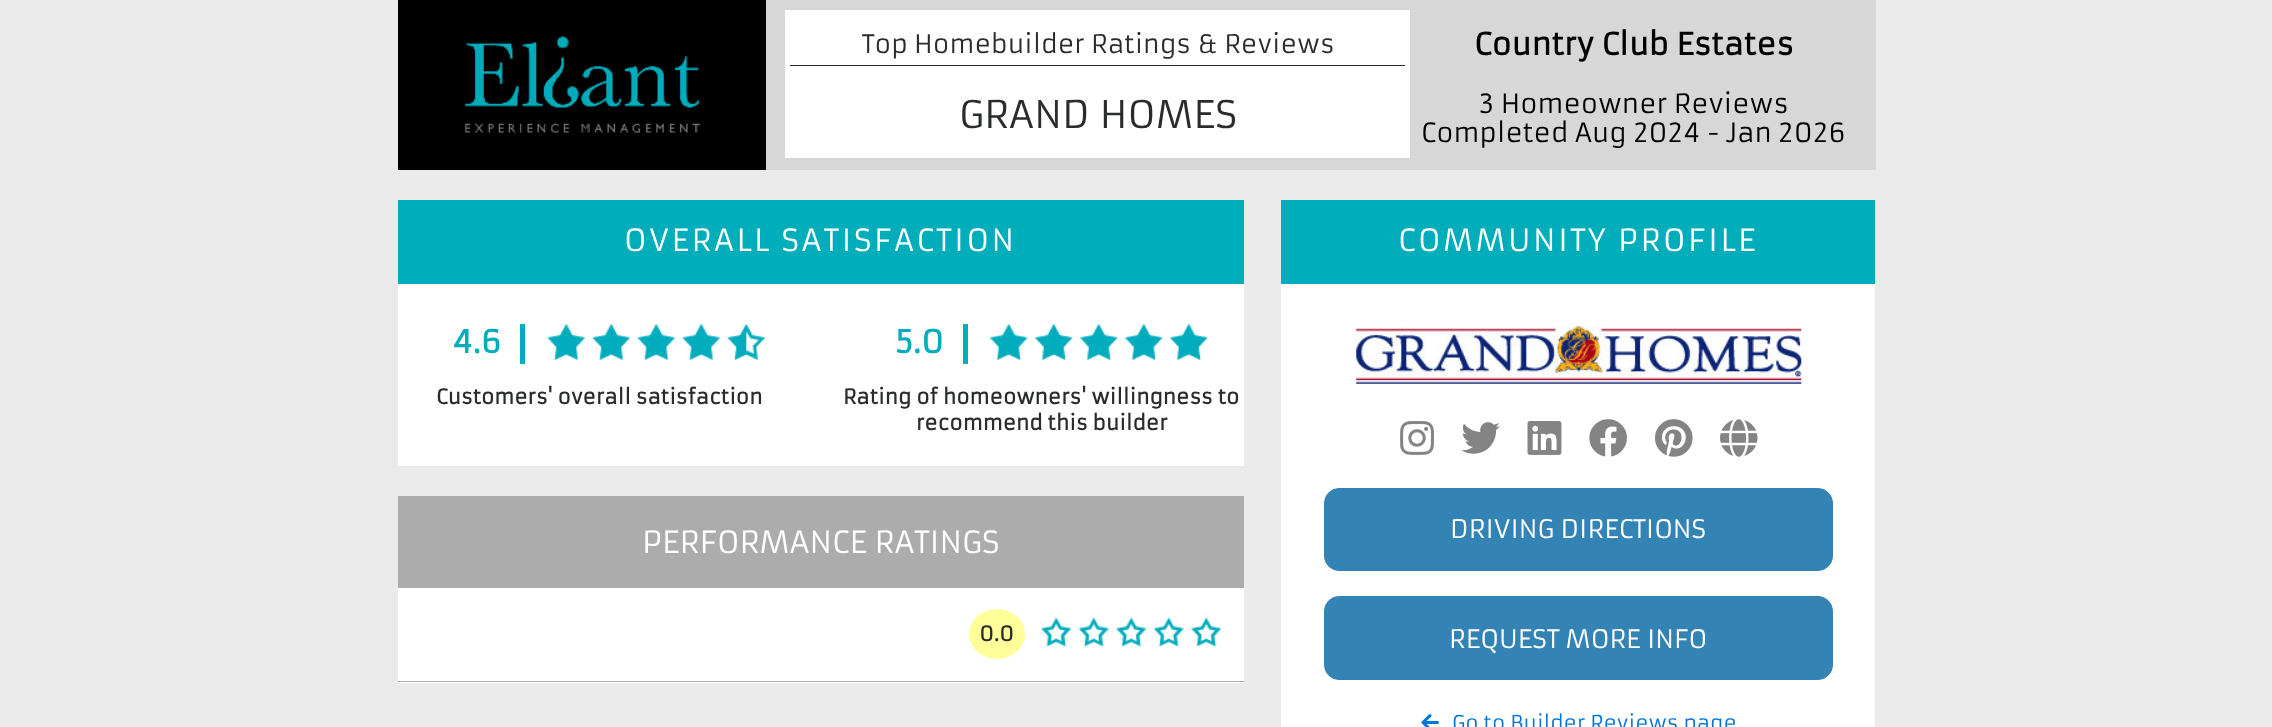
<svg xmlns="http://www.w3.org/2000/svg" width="2272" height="727">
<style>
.a{font:25px Armata;fill:#292b2c}
.b{font:37.5px Armata;fill:#292b2c}
.c{font:bold 30px Armata;fill:#000}
.d{font:26px Armata;fill:#000}
.e{font:30px Armata;letter-spacing:2.5px;fill:#fff}
.f{font:bold 31px Armata;fill:#01acbd}
.g{font:bold 20px Armata;fill:#292b2c}
.h{font:30px Armata;fill:#fff}
.i{font:25px Armata;fill:#fff}
.j{font:20px Armata;fill:#0275d8}
</style>
<rect width="100%" height="100%" fill="#eaeaea"/>
<path fill="#000" d="M398 0h368v170H398z"/>
<image href="1.png" x="464" y="36" width="237" height="97"/>
<path fill="#d7d7d7" d="M766 0h1110v170H766z"/>
<path fill="#fff" d="M785 10h625v148H785z"/>
<path fill="#292b2c" d="M790 65h615v1H790z"/>
<path fill="#00adbb" d="M398 200h846v84H398z"/>
<path fill="#fff" d="M398 284h846v182H398z"/>
<path fill="#01acbd" d="M520 324h5v40H520z"/>
<image href="2.png" x="547" y="323" width="38" height="38"/>
<image href="2.png" x="592" y="323" width="38" height="38"/>
<image href="2.png" x="637" y="323" width="38" height="38"/>
<image href="2.png" x="682" y="323" width="38" height="38"/>
<image href="3.png" x="727" y="323" width="38" height="38"/>
<path fill="#01acbd" d="M963 324h5v40H963z"/>
<image href="4.png" x="990" y="323" width="38" height="38"/>
<image href="5.png" x="1035" y="323" width="38" height="38"/>
<image href="5.png" x="1080" y="323" width="38" height="38"/>
<image href="6.png" x="1125" y="323" width="38" height="38"/>
<image href="6.png" x="1170" y="323" width="38" height="38"/>
<path fill="#fff" d="M398 588h846v95H398z"/>
<path fill="#acacac" d="M398 496h846v92H398z"/>
<path fill="#acacac" d="M398 681h846v1H398z"/>
<ellipse fill="#ff9" cx="997" cy="634" rx="28" ry="25"/>
<image href="7.png" x="1041" y="617" width="31" height="30"/>
<image href="8.png" x="1078" y="617" width="31" height="30"/>
<image href="7.png" x="1116" y="617" width="31" height="30"/>
<image href="8.png" x="1153" y="617" width="31" height="30"/>
<image href="7.png" x="1191" y="617" width="31" height="30"/>
<path fill="#00adbb" d="M1281 200h594v84H1281z"/>
<path fill="#fff" d="M1281 284h594v443H1281z"/>
<image href="9.png" x="1356" y="326" width="446" height="58"/>
<image href="10.png" x="1400" y="421" width="34" height="34"/>
<image href="11.png" x="1461" y="422" width="39" height="32"/>
<image href="12.png" x="1527" y="421" width="35" height="34"/>
<image href="13.png" x="1589" y="419" width="38" height="38"/>
<image href="14.png" x="1655" y="419" width="38" height="38"/>
<image href="15.png" x="1720" y="419" width="38" height="38"/>
<rect fill="#3383b4" stroke="#3383b4" x="1324.5" y="488.5" width="508" height="82" rx="14.5"/>
<rect fill="#3383b4" stroke="#3383b4" x="1324.5" y="596.5" width="508" height="83" rx="14.5"/>
<image href="16.png" x="1421" y="714" width="18" height="13"/>
<text class="a" x="862" y="53">Top Homebuilder Ratings &amp; Reviews</text>
<text class="b" x="959" y="128">GRAND HOMES</text>
<text class="c" x="1474" y="55">Country Club Estates</text>
<text class="d" x="1479" y="113">3 Homeowner Reviews</text>
<text class="d" x="1421" y="142">Completed Aug 2024 - Jan 2026</text>
<text class="e" x="624" y="251">OVERALL SATISFACTION</text>
<text class="f" x="452" y="353">4.6</text>
<text class="g" x="436" y="404">Customers' overall satisfaction</text>
<text class="f" x="895" y="353">5.0</text>
<text class="g" x="843" y="404">Rating of homeowners' willingness to</text>
<text class="g" x="916" y="430">recommend this builder</text>
<text class="h" x="642" y="553">PERFORMANCE RATINGS</text>
<text class="g" x="979" y="641">0.0</text>
<text class="e" x="1398" y="251">COMMUNITY PROFILE</text>
<text class="i" x="1450" y="538">DRIVING DIRECTIONS</text>
<text class="i" x="1449" y="648">REQUEST MORE INFO</text>
<text class="j" x="1452" y="730">Go to Builder Reviews page</text>
</svg>
